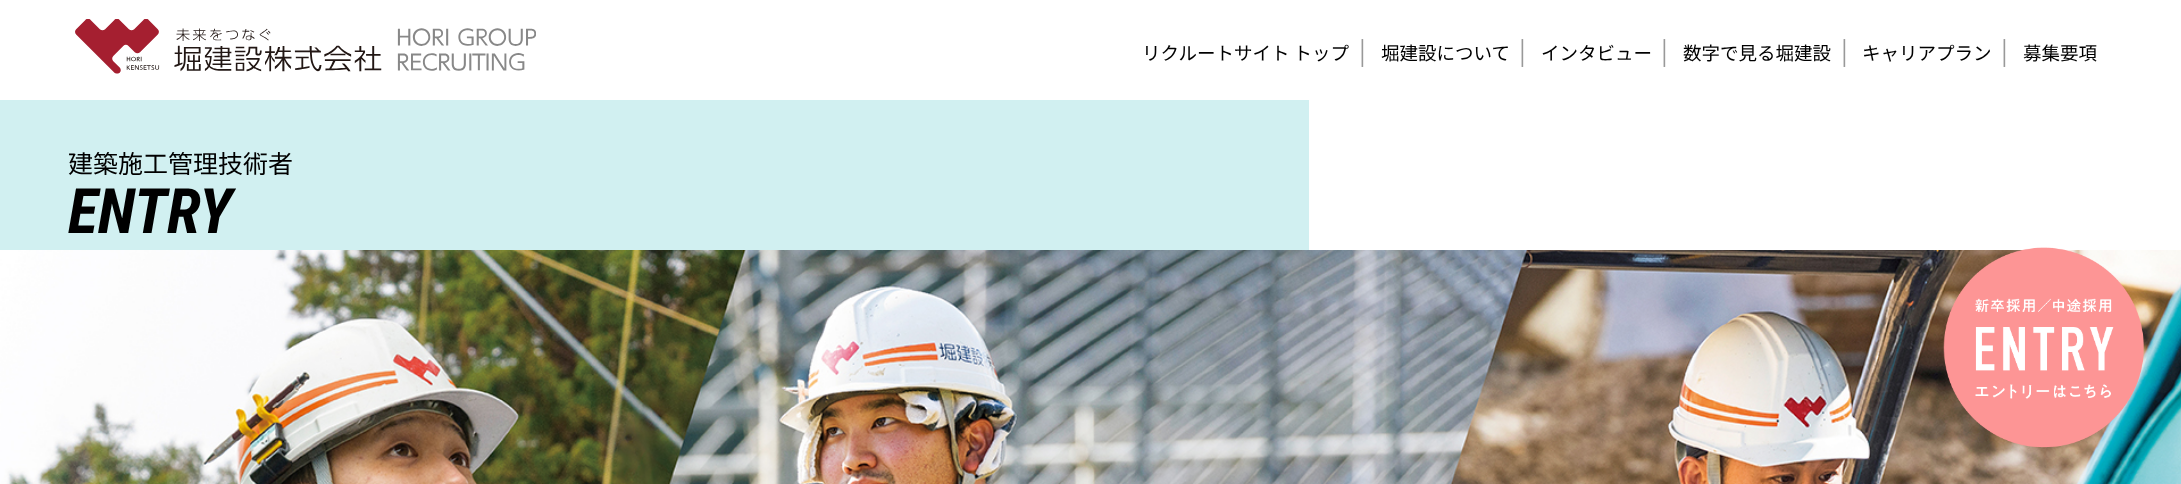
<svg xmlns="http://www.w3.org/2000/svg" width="2181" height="484">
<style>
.a{font:18.5px Noto Sans JP;fill:#000}
.b{font:25px Noto Sans JP;fill:#999}
.c{font:25px Noto Sans JP;fill:#000}
.d{font:italic bold 62.5px Roboto Condensed;fill:#000}
</style>
<rect width="100%" height="100%" fill="#fff"/>
<image href="1.png" x="75" y="19" width="461" height="55"/>
<path fill="#d1f0f1" d="M0 100h1309v150H0z"/>
<image href="2.png" x="0" y="250" width="2181" height="234"/>
<image href="3.png" x="1943" y="247" width="201" height="201"/>
<text class="a" x="1142" y="60">リクルートサイト トップ</text>
<text class="b" x="1359" y="60">|</text>
<text class="a" x="1381" y="60">堀建設について</text>
<text class="b" x="1519" y="60">|</text>
<text class="a" x="1541" y="60">インタビュー</text>
<text class="b" x="1661" y="60">|</text>
<text class="a" x="1683" y="60">数字で見る堀建設</text>
<text class="b" x="1841" y="60">|</text>
<text class="a" x="1862" y="60">キャリアプラン</text>
<text class="b" x="2001" y="60">|</text>
<text class="a" x="2023" y="60">募集要項</text>
<text class="c" x="68" y="173">建築施工管理技術者</text>
<text class="d" x="68" y="233">ENTRY</text>
</svg>
